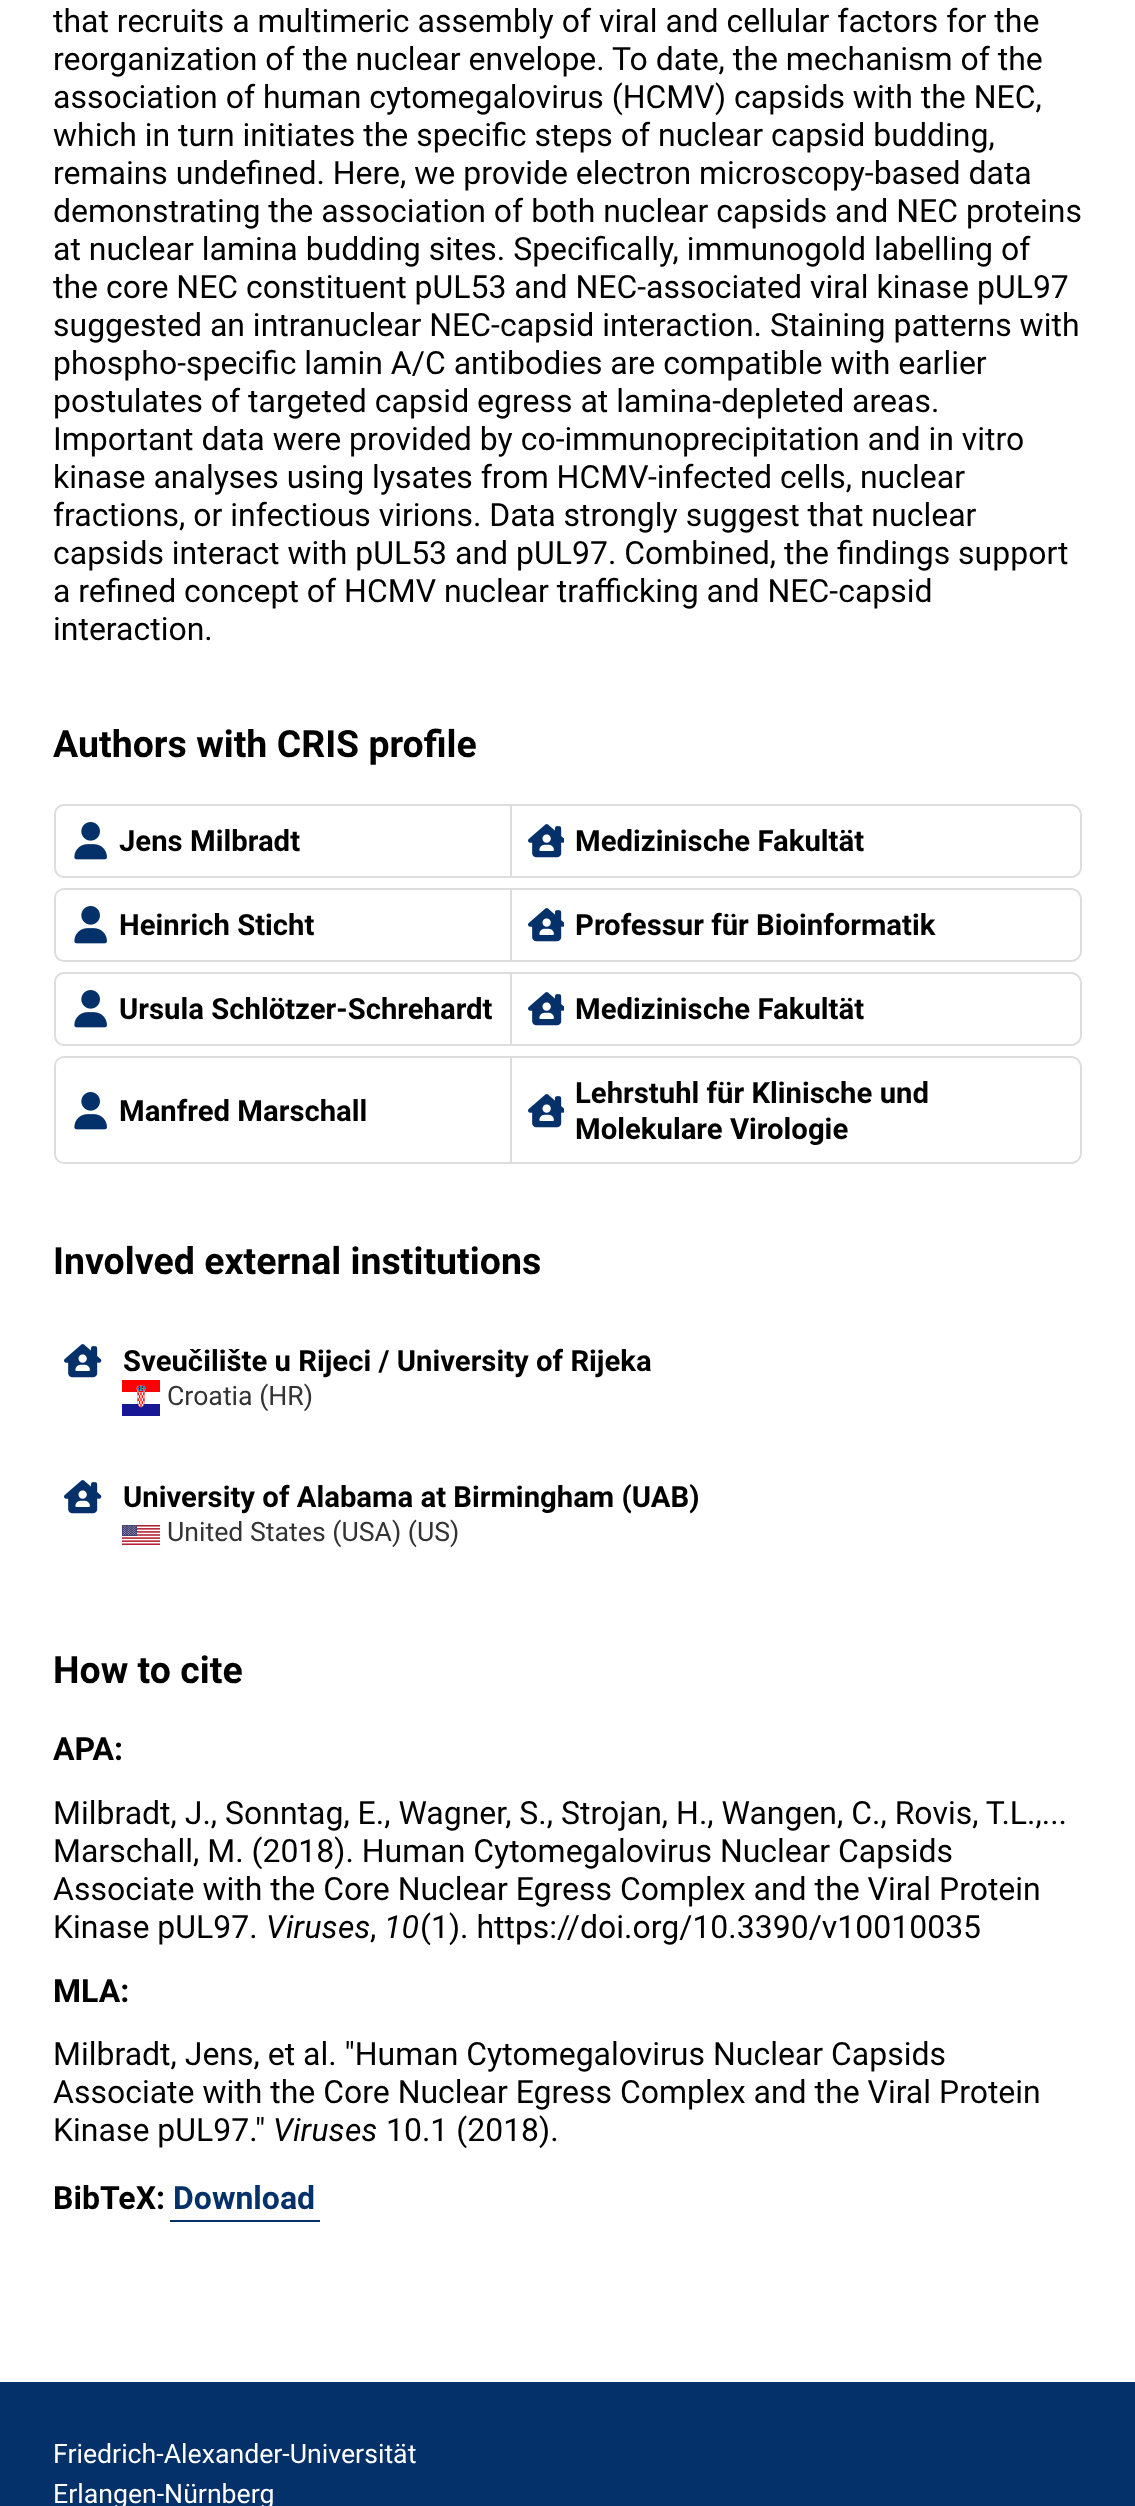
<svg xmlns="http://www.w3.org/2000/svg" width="1135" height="2506">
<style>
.a{font:32px Roboto;fill:#000}
.b{font:bold 37.5px Roboto;fill:#000}
.c{font:bold 29.3px Roboto;fill:#000}
.d{font:26.7px Roboto;fill:#333}
.e{font:bold 32px Roboto;fill:#000}
.f{font:italic 32px Roboto;fill:#000}
.g{font:bold 32px Roboto;fill:#04316a}
.h{font:26.7px Roboto;fill:#fff}
</style>
<rect width="100%" height="100%" fill="#fff"/>
<path fill="none" stroke="#ddd" stroke-width="2" d="M64 805h447v72h-447c-5 0-9-4-9-9v-54c0-5 4-9 9-9z"/>
<image href="1.png" x="74" y="822" width="33" height="38"/>
<path fill="#ddd" fill-rule="evenodd" d="M512 804h559c6 0 11 5 11 11v52c0 6-5 11-11 11h-559zm0 2h559c5 0 9 4 9 9v52c0 5-4 9-9 9h-559z"/>
<image href="2.png" x="528" y="824" width="36" height="34"/>
<path fill="none" stroke="#ddd" stroke-width="2" d="M64 889h447v72h-447c-5 0-9-4-9-9v-54c0-5 4-9 9-9z"/>
<image href="1.png" x="74" y="906" width="33" height="38"/>
<path fill="#ddd" fill-rule="evenodd" d="M512 888h559c6 0 11 5 11 11v52c0 6-5 11-11 11h-559zm0 2h559c5 0 9 4 9 9v52c0 5-4 9-9 9h-559z"/>
<image href="2.png" x="528" y="908" width="36" height="34"/>
<path fill="none" stroke="#ddd" stroke-width="2" d="M64 973h447v72h-447c-5 0-9-4-9-9v-54c0-5 4-9 9-9z"/>
<image href="1.png" x="74" y="990" width="33" height="38"/>
<path fill="#ddd" fill-rule="evenodd" d="M512 972h559c6 0 11 5 11 11v52c0 6-5 11-11 11h-559zm0 2h559c5 0 9 4 9 9v52c0 5-4 9-9 9h-559z"/>
<image href="2.png" x="528" y="992" width="36" height="34"/>
<path fill="none" stroke="#ddd" stroke-width="2" d="M64 1057h447v106h-447c-5 0-9-4-9-9v-88c0-5 4-9 9-9z"/>
<image href="1.png" x="74" y="1092" width="33" height="38"/>
<path fill="#ddd" fill-rule="evenodd" d="M512 1056h559c6 0 11 5 11 11v86c0 6-5 11-11 11h-559zm0 2h559c5 0 9 4 9 9v86c0 5-4 9-9 9h-559z"/>
<image href="2.png" x="528" y="1094" width="36" height="34"/>
<image href="3.png" x="64" y="1344" width="38" height="34"/>
<image href="4.png" x="122" y="1380" width="38" height="36"/>
<image href="3.png" x="64" y="1480" width="38" height="34"/>
<image href="5.png" x="122" y="1525" width="38" height="20"/>
<path fill="#04316a" d="M170 2220h150v2H170z"/>
<path fill="#04316a" d="M0 2382h1135v124H0z"/>
<text class="a" x="53" y="32">that recruits a multimeric assembly of viral and cellular factors for the</text>
<text class="a" x="53" y="70">reorganization of the nuclear envelope. To date, the mechanism of the</text>
<text class="a" x="53" y="108">association of human cytomegalovirus (HCMV) capsids with the NEC,</text>
<text class="a" x="53" y="146">which in turn initiates the specific steps of nuclear capsid budding,</text>
<text class="a" x="53" y="184">remains undefined. Here, we provide electron microscopy-based data</text>
<text class="a" x="53" y="222">demonstrating the association of both nuclear capsids and NEC proteins</text>
<text class="a" x="53" y="260">at nuclear lamina budding sites. Specifically, immunogold labelling of</text>
<text class="a" x="53" y="298">the core NEC constituent pUL53 and NEC-associated viral kinase pUL97</text>
<text class="a" x="53" y="336">suggested an intranuclear NEC-capsid interaction. Staining patterns with</text>
<text class="a" x="53" y="374">phospho-specific lamin A/C antibodies are compatible with earlier</text>
<text class="a" x="53" y="412">postulates of targeted capsid egress at lamina-depleted areas.</text>
<text class="a" x="53" y="450">Important data were provided by co-immunoprecipitation and in vitro</text>
<text class="a" x="53" y="488">kinase analyses using lysates from HCMV-infected cells, nuclear</text>
<text class="a" x="53" y="526">fractions, or infectious virions. Data strongly suggest that nuclear</text>
<text class="a" x="53" y="564">capsids interact with pUL53 and pUL97. Combined, the findings support</text>
<text class="a" x="53" y="602">a refined concept of HCMV nuclear trafficking and NEC-capsid</text>
<text class="a" x="53" y="640">interaction.</text>
<text class="b" x="53" y="757">Authors with CRIS profile</text>
<text class="c" x="119" y="851">Jens Milbradt</text>
<text class="c" x="575" y="851">Medizinische Fakultät</text>
<text class="c" x="119" y="935">Heinrich Sticht</text>
<text class="c" x="575" y="935">Professur für Bioinformatik</text>
<text class="c" x="119" y="1019">Ursula Schlötzer-Schrehardt</text>
<text class="c" x="575" y="1019">Medizinische Fakultät</text>
<text class="c" x="119" y="1121">Manfred Marschall</text>
<text class="c" x="575" y="1103">Lehrstuhl für Klinische und</text>
<text class="c" x="575" y="1139">Molekulare Virologie</text>
<text class="b" x="53" y="1274">Involved external institutions</text>
<text class="c" x="123" y="1371">Sveučilište u Rijeci / University of Rijeka</text>
<text class="d" x="167" y="1405">Croatia (HR)</text>
<text class="c" x="123" y="1507">University of Alabama at Birmingham (UAB)</text>
<text class="d" x="167" y="1541">United States (USA) (US)</text>
<text class="b" x="53" y="1683">How to cite</text>
<text class="e" x="53" y="1760">APA:</text>
<text class="a" x="53" y="1824">Milbradt, J., Sonntag, E., Wagner, S., Strojan, H., Wangen, C., Rovis, T.L.,...</text>
<text class="a" x="53" y="1862">Marschall, M. (2018). Human Cytomegalovirus Nuclear Capsids</text>
<text class="a" x="53" y="1900">Associate with the Core Nuclear Egress Complex and the Viral Protein</text>
<text class="a" x="53" y="1938">Kinase pUL97.</text>
<text class="f" x="266" y="1938">Viruses</text>
<text class="a" x="370" y="1938">,</text>
<text class="f" x="384" y="1938">10</text>
<text class="a" x="420" y="1938">(1). https://doi.org/10.3390/v10010035</text>
<text class="e" x="53" y="2002">MLA:</text>
<text class="a" x="53" y="2065">Milbradt, Jens, et al. "Human Cytomegalovirus Nuclear Capsids</text>
<text class="a" x="53" y="2103">Associate with the Core Nuclear Egress Complex and the Viral Protein</text>
<text class="a" x="53" y="2141">Kinase pUL97."</text>
<text class="f" x="273" y="2141">Viruses</text>
<text class="a" x="386" y="2141">10.1 (2018).</text>
<text class="e" x="53" y="2209">BibTeX:</text>
<text class="g" x="173" y="2209">Download</text>
<text class="h" x="53" y="2463">Friedrich-Alexander-Universität</text>
<text class="h" x="53" y="2503">Erlangen-Nürnberg</text>
</svg>
